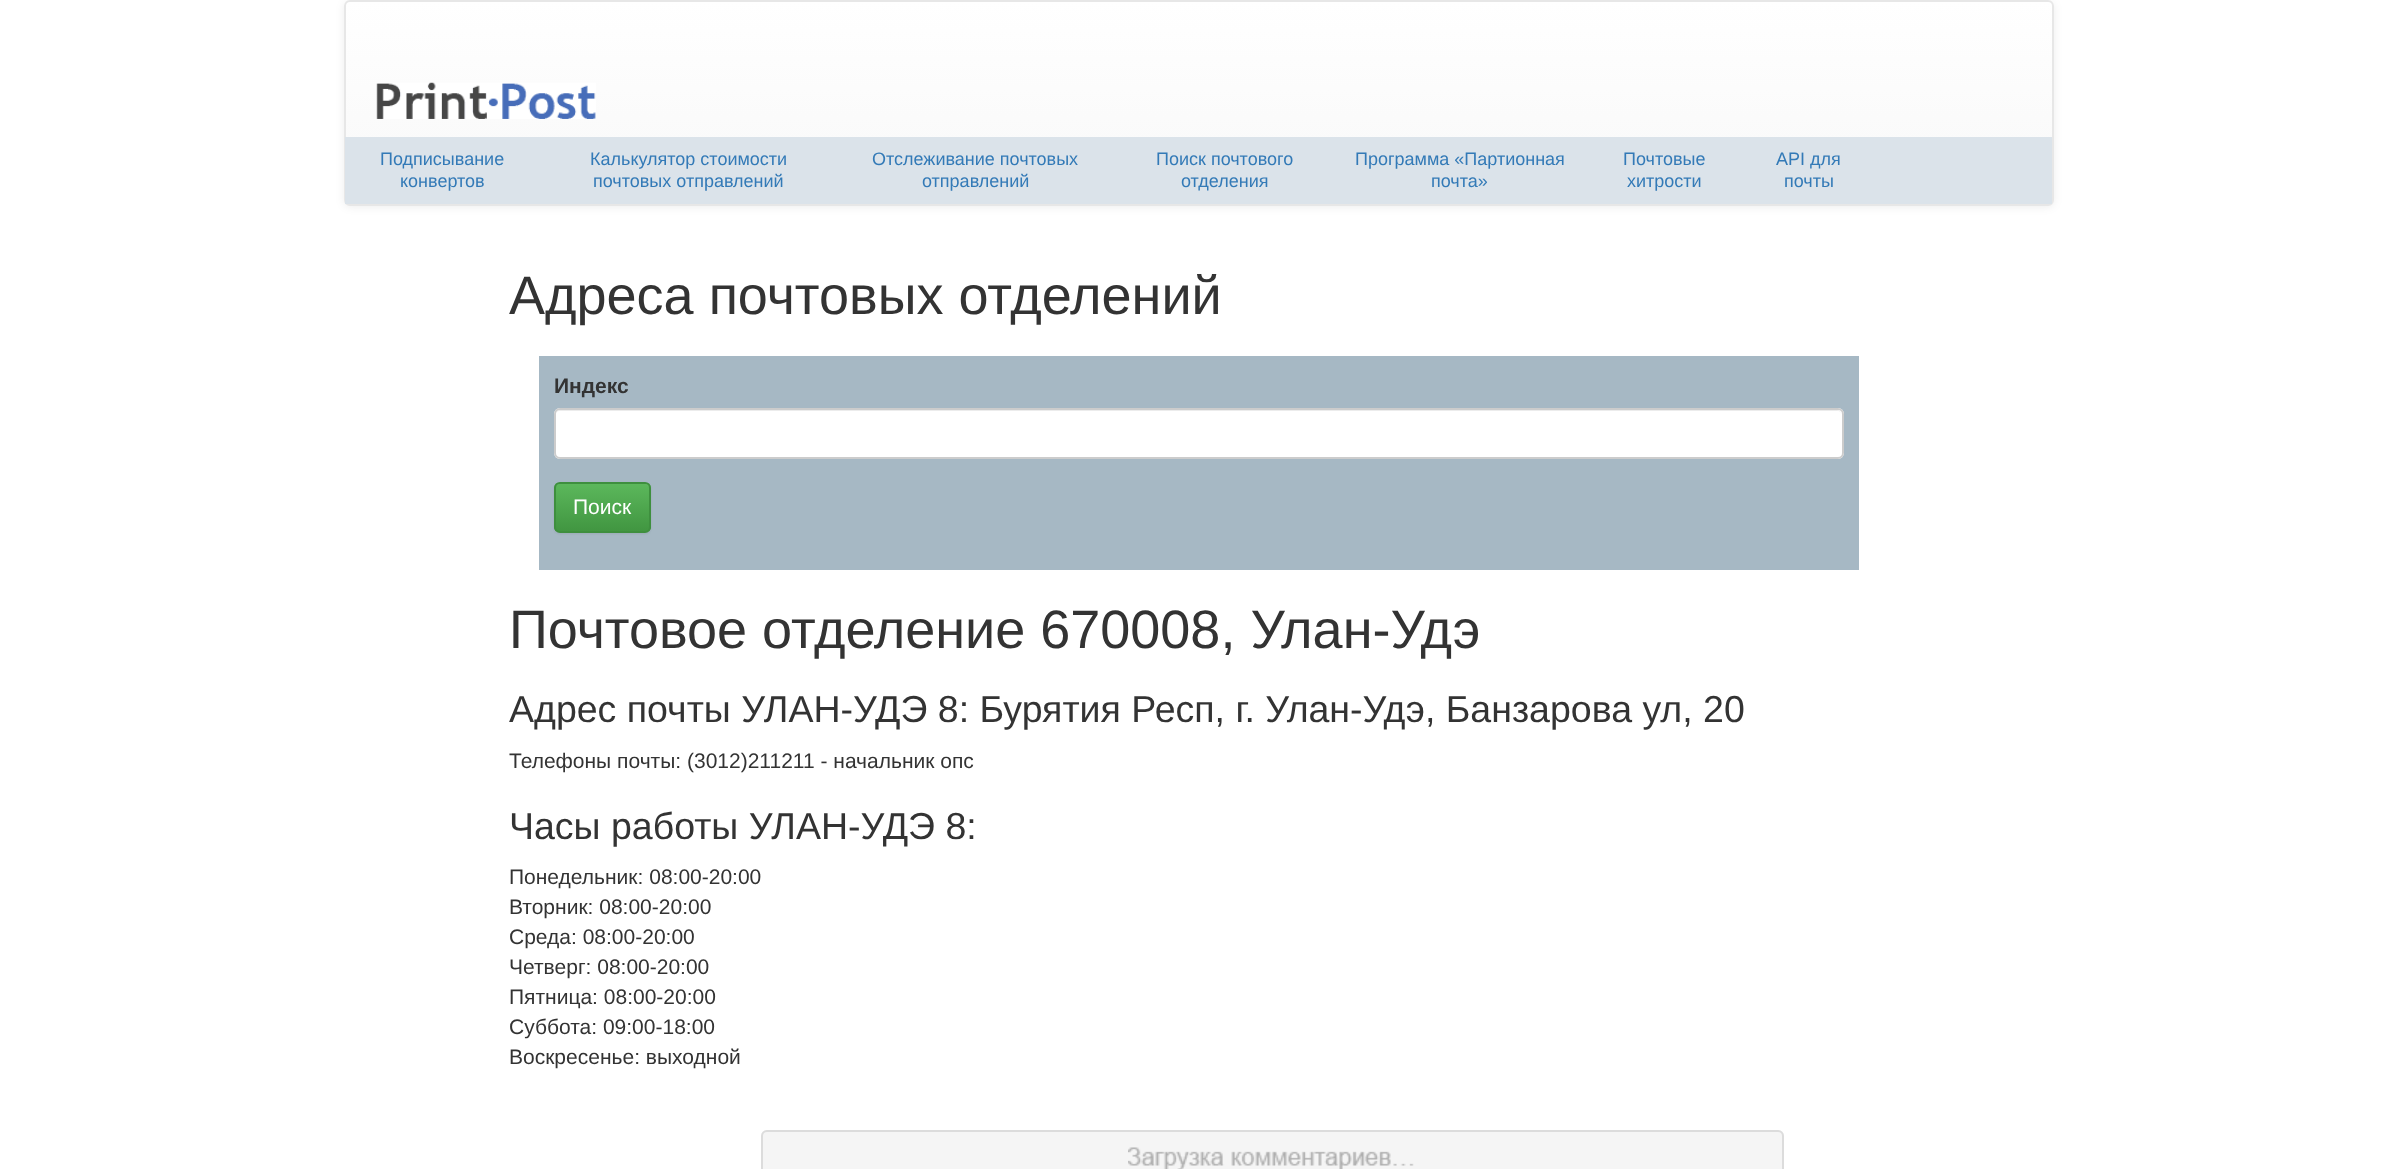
<svg xmlns="http://www.w3.org/2000/svg" width="2397" height="1169">
<style>
.a{font:18px Liberation Sans;fill:#337ab7}
.b{font:54px Liberation Sans;fill:#333}
.c{font:bold 21px Liberation Sans;fill:#333}
.d{font:21px Liberation Sans;fill:#fff}
.e{font:37.5px Liberation Sans;fill:#333}
.f{font:21px Liberation Sans;fill:#333}
</style>
<defs>
<clipPath id="clip1"><rect x="344" width="1710" height="206" rx="6"/></clipPath>
<linearGradient id="g1" gradientUnits="userSpaceOnUse" x1="1199" y1="1.5" x2="1199" y2="204"><stop offset="0" stop-color="#fff"/><stop offset="1" stop-color="#f8f8f8"/></linearGradient>
<clipPath id="clip2"><rect x="554" y="482" width="97" height="51" rx="6"/></clipPath>
<linearGradient id="g2" gradientUnits="userSpaceOnUse" x1="602" y1="483" x2="602" y2="531"><stop offset="0" stop-color="#5cb85c"/><stop offset="1" stop-color="#419641"/></linearGradient>
</defs>
<rect width="100%" height="100%" fill="#fff"/>
<rect fill="#00000012" filter="blur(4px)" x="344" y="2" width="1710" height="205" rx="6"/>
<g clip-path="url(#clip1)">
<path fill="url(#g1)" d="M344 2h1710v202H344z"/>
</g>
<rect fill="none" stroke="#e7e7e7" stroke-width="2" x="345" y="1" width="1708" height="204" rx="5"/>
<image href="1.png" x="376" y="82" width="220" height="37"/>
<path fill="#dbe3ea" d="M345 137h1707v67H345z"/>
<path fill="#a6b8c4" d="M539 356h1320v214H539z"/>
<rect fill="#fff" x="554" y="408" width="1290" height="51" rx="6"/>
<path fill="#ececec" d="M560 411h1278c2 0 4 2 4 5c0-3-2-6-5-6h-1277c-3 0-5 3-5 6c0-3 2-5 5-5z"/>
<rect fill="none" stroke="#ccc" stroke-width="2" x="555" y="409" width="1288" height="49" rx="5"/>
<rect fill="#00000012" filter="blur(1px)" x="554" y="483" width="97" height="51" rx="6"/>
<g clip-path="url(#clip2)">
<path fill="url(#g2)" d="M554 483h97v48H554z"/>
</g>
<path fill="#74c374" d="M560 484h85c2 0 5 3 5 5c0-10-14-6-19-6h-57c-5 0-19-4-19 6c0-2 2-5 5-5z"/>
<rect fill="none" stroke="#3e8f3e" stroke-width="2" x="555" y="483" width="95" height="49" rx="5"/>
<rect fill="#f5f5f5" x="761" y="1130" width="1023" height="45" rx="6"/>
<image href="2.png" x="1128" y="1147" width="286" height="22"/>
<rect fill="none" stroke="#dcdcdc" stroke-width="2" x="762" y="1131" width="1021" height="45" rx="5"/>
<text class="a" x="380" y="165">Подписывание</text>
<text class="a" x="400" y="187">конвертов</text>
<text class="a" x="590" y="165">Калькулятор стоимости</text>
<text class="a" x="593" y="187">почтовых отправлений</text>
<text class="a" x="872" y="165">Отслеживание почтовых</text>
<text class="a" x="922" y="187">отправлений</text>
<text class="a" x="1156" y="165">Поиск почтового</text>
<text class="a" x="1181" y="187">отделения</text>
<text class="a" x="1355" y="165">Программа «Партионная</text>
<text class="a" x="1431" y="187">почта»</text>
<text class="a" x="1623" y="165">Почтовые</text>
<text class="a" x="1627" y="187">хитрости</text>
<text class="a" x="1776" y="165">API для</text>
<text class="a" x="1784" y="187">почты</text>
<text class="b" x="509" y="314">Адреса почтовых отделений</text>
<text class="c" x="554" y="393">Индекс</text>
<text class="d" x="573" y="514">Поиск</text>
<text class="b" x="509" y="648">Почтовое отделение 670008, Улан-Удэ</text>
<text class="e" x="509" y="722">Адрес почты УЛАН-УДЭ 8: Бурятия Респ, г. Улан-Удэ, Банзарова ул, 20</text>
<text class="f" x="509" y="768">Телефоны почты: (3012)211211 - начальник опс</text>
<text class="e" x="509" y="839">Часы работы УЛАН-УДЭ 8:</text>
<text class="f" x="509" y="884">Понедельник: 08:00-20:00</text>
<text class="f" x="509" y="914">Вторник: 08:00-20:00</text>
<text class="f" x="509" y="944">Среда: 08:00-20:00</text>
<text class="f" x="509" y="974">Четверг: 08:00-20:00</text>
<text class="f" x="509" y="1004">Пятница: 08:00-20:00</text>
<text class="f" x="509" y="1034">Суббота: 09:00-18:00</text>
<text class="f" x="509" y="1064">Воскресенье: выходной</text>
</svg>
